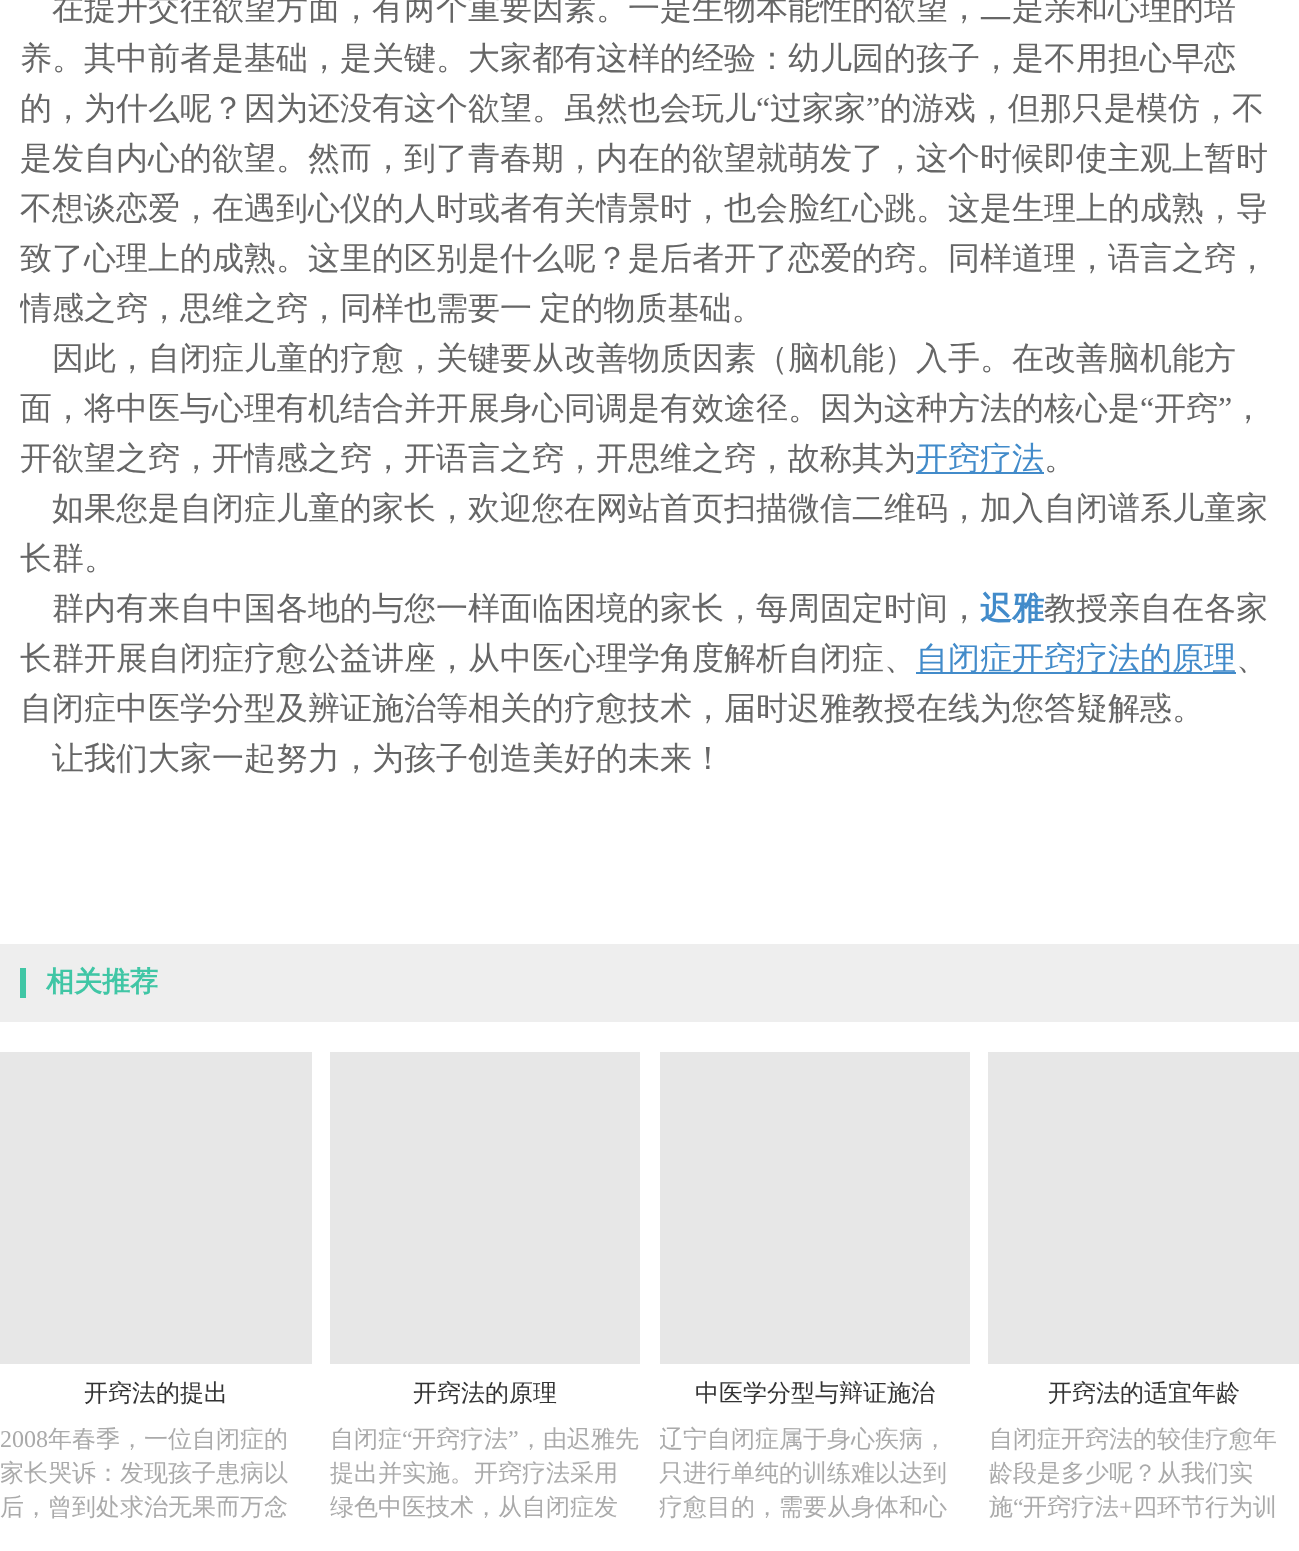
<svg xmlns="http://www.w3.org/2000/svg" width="1299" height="1551">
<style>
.a{font:500 32px WenQuanYi Zen Hei;fill:#666}
.b{font:32px Liberation Serif;fill:#666}
.c{font:500 32px WenQuanYi Zen Hei;fill:#428bca}
.d{font:bold 32px WenQuanYi Zen Hei;fill:#428bca}
.e{font:bold 28px WenQuanYi Zen Hei;fill:#40c6a5}
.f{font:500 24px WenQuanYi Zen Hei;fill:#333}
.g{font:24px Liberation Serif;fill:#aaa}
.h{font:500 24px WenQuanYi Zen Hei;fill:#aaa}
</style>
<defs>
<clipPath id="clip1"><path d="M20 0h1260v832H20z"/></clipPath>
<clipPath id="clip2"><path d="M660 1424h310v100H660z"/></clipPath>
</defs>
<rect width="100%" height="100%" fill="#fff"/>
<path fill="#428bca" d="M916 472h128v2H916z"/>
<path fill="#428bca" d="M916 672h320v2H916z"/>
<path fill="#eee" d="M0 944h1299v78H0z"/>
<path fill="#40c6a5" d="M20 968h6v30H20z"/>
<path fill="#e7e7e7" d="M0 1052h312v312H0z"/>
<path fill="#e7e7e7" d="M330 1052h310v312H330z"/>
<path fill="#e7e7e7" d="M660 1052h310v312H660z"/>
<path fill="#e7e7e7" d="M988 1052h311v312H988z"/>
<text class="a" x="52" y="19">在提升交往欲望方面，有两个重要因素。一是生物本能性的欲望，二是亲和心理的培</text>
<text class="a" x="20" y="69">养。其中前者是基础，是关键。大家都有这样的经验：幼儿园的孩子，是不用担心早恋</text>
<text class="a" x="20" y="119">的，为什么呢？因为还没有这个欲望。虽然也会玩儿</text>
<text class="b" x="756" y="119">“</text>
<text class="a" x="770" y="119">过家家</text>
<text class="b" x="866" y="119">”</text>
<text class="a" x="880" y="119">的游戏，但那只是模仿，不</text>
<text class="a" x="20" y="169">是发自内心的欲望。然而，到了青春期，内在的欲望就萌发了，这个时候即使主观上暂时</text>
<text class="a" x="20" y="219">不想谈恋爱，在遇到心仪的人时或者有关情景时，也会脸红心跳。这是生理上的成熟，导</text>
<text class="a" x="20" y="269">致了心理上的成熟。这里的区别是什么呢？是后者开了恋爱的窍。同样道理，语言之窍，</text>
<g clip-path="url(#clip1)">
<text class="a" x="20" y="319" word-spacing="-2">情感之窍，思维之窍，同样也需要一 定的物质基础。</text>
</g>
<text class="a" x="52" y="369">因此，自闭症儿童的疗愈，关键要从改善物质因素（脑机能）入手。在改善脑机能方</text>
<text class="a" x="20" y="419">面，将中医与心理有机结合并开展身心同调是有效途径。因为这种方法的核心是</text>
<text class="b" x="1140" y="419">“</text>
<text class="a" x="1154" y="419">开窍</text>
<text class="b" x="1218" y="419">”</text>
<text class="a" x="1232" y="419">，</text>
<text class="a" x="20" y="469">开欲望之窍，开情感之窍，开语言之窍，开思维之窍，故称其为</text>
<text class="c" x="916" y="469">开窍疗法</text>
<text class="a" x="1044" y="469">。</text>
<text class="a" x="52" y="519">如果您是自闭症儿童的家长，欢迎您在网站首页扫描微信二维码，加入自闭谱系儿童家</text>
<text class="a" x="20" y="569">长群。</text>
<text class="a" x="52" y="619">群内有来自中国各地的与您一样面临困境的家长，每周固定时间，</text>
<text class="d" x="980" y="619">迟雅</text>
<text class="a" x="1044" y="619">教授亲自在各家</text>
<text class="a" x="20" y="669">长群开展自闭症疗愈公益讲座，从中医心理学角度解析自闭症、</text>
<text class="c" x="916" y="669">自闭症开窍疗法的原理</text>
<text class="a" x="1236" y="669">、</text>
<text class="a" x="20" y="719">自闭症中医学分型及辨证施治等相关的疗愈技术，届时迟雅教授在线为您答疑解惑。</text>
<text class="a" x="52" y="769">让我们大家一起努力，为孩子创造美好的未来！</text>
<text class="e" x="46" y="991">相关推荐</text>
<text class="f" x="84" y="1401">开窍法的提出</text>
<text class="g" x="0" y="1447">2008</text>
<text class="h" x="48" y="1447">年春季，一位自闭症的</text>
<text class="h" x="0" y="1481">家长哭诉：发现孩子患病以</text>
<text class="h" x="0" y="1515">后，曾到处求治无果而万念</text>
<text class="f" x="413" y="1401">开窍法的原理</text>
<text class="h" x="330" y="1447">自闭症</text>
<text class="g" x="402" y="1447">“</text>
<text class="h" x="412" y="1447">开窍疗法</text>
<text class="g" x="508" y="1447">”</text>
<text class="h" x="519" y="1447">，由迟雅先</text>
<text class="h" x="330" y="1481">提出并实施。开窍疗法采用</text>
<text class="h" x="330" y="1515">绿色中医技术，从自闭症发</text>
<text class="f" x="695" y="1401">中医学分型与辩证施治</text>
<g clip-path="url(#clip2)">
<text class="h" x="659" y="1447">辽宁自闭症属于身心疾病，</text>
</g>
<text class="h" x="659" y="1481">只进行单纯的训练难以达到</text>
<text class="h" x="659" y="1515">疗愈目的，需要从身体和心</text>
<text class="f" x="1048" y="1401">开窍法的适宜年龄</text>
<text class="h" x="989" y="1447">自闭症开窍法的较佳疗愈年</text>
<text class="h" x="989" y="1481">龄段是多少呢？从我们实</text>
<text class="h" x="989" y="1515">施</text>
<text class="g" x="1013" y="1515">“</text>
<text class="h" x="1023" y="1515">开窍疗法</text>
<text class="g" x="1119" y="1515">+</text>
<text class="h" x="1133" y="1515">四环节行为训</text>
</svg>
